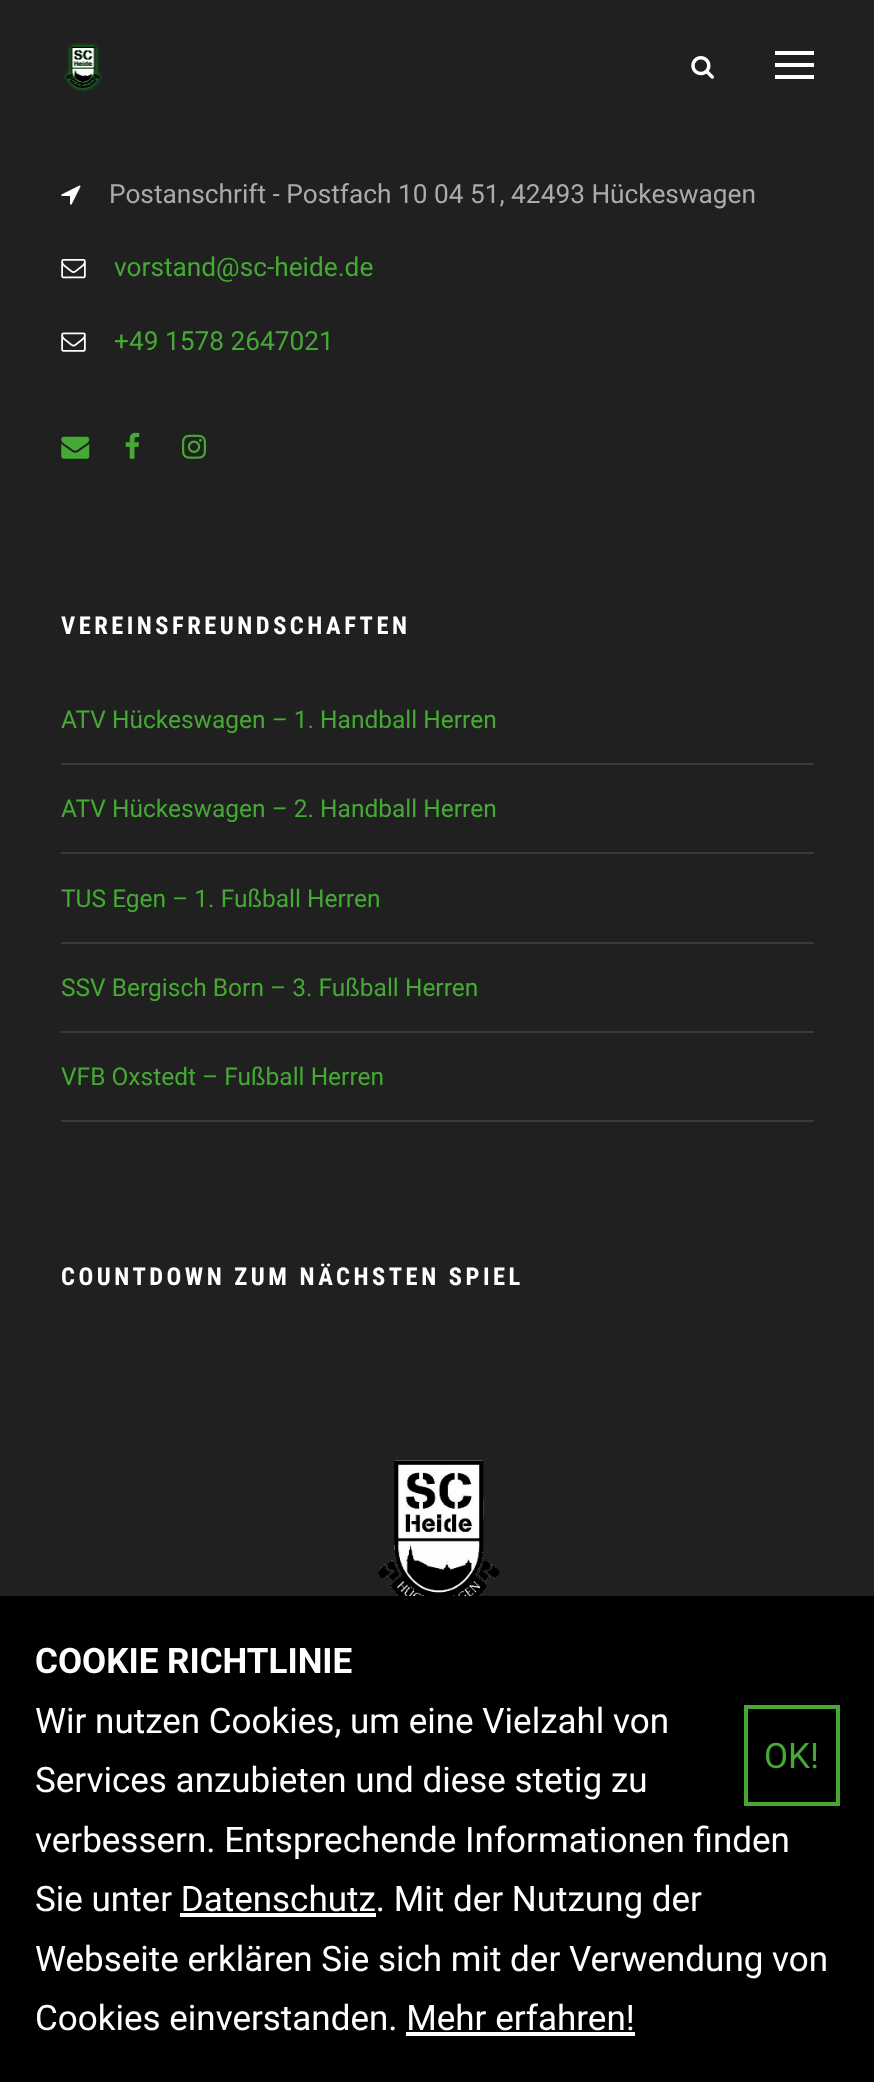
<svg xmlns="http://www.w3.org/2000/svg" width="874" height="2082">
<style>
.a{font:26.25px Roboto;fill:#ababab}
.b{font:26.25px Roboto;fill:#4a3}
.c{font:bold 24.5px Roboto Condensed;letter-spacing:3.5px;fill:#fff}
.d{font:24.5px Roboto;fill:#4a3}
.e{font:bold 35px Roboto;fill:#fff}
.f{font:35px Roboto;fill:#fff}
.g{font:35px Roboto;fill:#4a3}
</style>
<rect width="100%" height="100%" fill="#202020"/>
<image href="1.png" x="63" y="43" width="40" height="49"/>
<image href="2.png" x="691" y="56" width="23" height="23"/>
<path fill="#fff" d="M775 51h39v4H775z"/>
<path fill="#fff" d="M775 63h39v4H775z"/>
<path fill="#fff" d="M775 75h39v4H775z"/>
<image href="3.png" x="61" y="185" width="20" height="20"/>
<image href="4.png" x="61" y="259" width="25" height="20"/>
<image href="5.png" x="61" y="332" width="25" height="20"/>
<image href="6.png" x="61" y="436" width="29" height="23"/>
<image href="7.png" x="125" y="432" width="15" height="27"/>
<image href="8.png" x="182" y="434" width="24" height="25"/>
<path fill="#3a3a3a" d="M61 763h753v2H61z"/>
<path fill="#3a3a3a" d="M61 852h753v2H61z"/>
<path fill="#3a3a3a" d="M61 942h753v2H61z"/>
<path fill="#3a3a3a" d="M61 1031h753v2H61z"/>
<path fill="#3a3a3a" d="M61 1120h753v2H61z"/>
<image href="9.png" x="378" y="1460" width="122" height="136"/>
<path fill="#000" d="M0 1596h874v486H0z"/>
<path fill="none" stroke="#4a3" stroke-width="4" d="M746 1707h92v97H746z"/>
<path fill="#fff" d="M180 1913h196v4H180z"/>
<path fill="#fff" d="M406 2032h229v4H406z"/>
<text class="a" x="109" y="203">Postanschrift - Postfach 10 04 51, 42493 Hückeswagen</text>
<text class="b" x="114" y="276">vorstand@sc-heide.de</text>
<text class="b" x="114" y="350">+49 1578 2647021</text>
<text class="c" x="61" y="634">VEREINSFREUNDSCHAFTEN</text>
<text class="d" x="61" y="728">ATV Hückeswagen – 1. Handball Herren</text>
<text class="d" x="61" y="817">ATV Hückeswagen – 2. Handball Herren</text>
<text class="d" x="61" y="907">TUS Egen – 1. Fußball Herren</text>
<text class="d" x="61" y="996">SSV Bergisch Born – 3. Fußball Herren</text>
<text class="d" x="61" y="1085">VFB Oxstedt – Fußball Herren</text>
<text class="c" x="61" y="1285">COUNTDOWN ZUM NÄCHSTEN SPIEL</text>
<text class="e" x="35" y="1673">COOKIE RICHTLINIE</text>
<text class="f" x="35" y="1733">Wir nutzen Cookies, um eine Vielzahl von</text>
<text class="g" x="764" y="1768">OK!</text>
<text class="f" x="35" y="1792">Services anzubieten und diese stetig zu</text>
<text class="f" x="35" y="1852">verbessern. Entsprechende Informationen finden</text>
<text class="f" x="35" y="1911">Sie unter Datenschutz. Mit der Nutzung der</text>
<text class="f" x="35" y="1971">Webseite erklären Sie sich mit der Verwendung von</text>
<text class="f" x="35" y="2030">Cookies einverstanden. Mehr erfahren!</text>
</svg>
